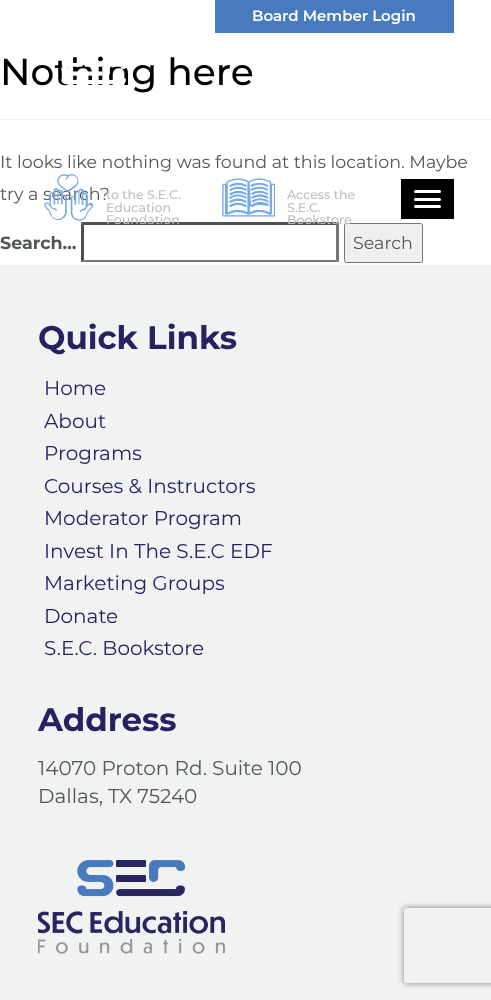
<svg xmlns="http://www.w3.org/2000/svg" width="491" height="1000">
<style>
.a{font:600 15px Montserrat;fill:#fff}
.b{font:500 12.5px Montserrat;fill:#bcbec0}
.c{font:500 37.5px Montserrat;fill:#000}
.d{font:17.5px Montserrat;fill:#525656}
.e{font:bold 17.5px Montserrat;fill:#525656}
.f{font:bold 32.5px Montserrat;fill:#262262}
.g{font:20px Montserrat;fill:#262262}
.h{font:20px Montserrat;fill:#525656}
</style>
<defs>
<clipPath id="clip1"><path d="M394 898h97v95h-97zm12.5 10h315c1.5 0 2.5 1 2.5 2.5v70c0 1.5-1 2.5-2.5 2.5h-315c-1.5 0-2.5-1-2.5-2.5v-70c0-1.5 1-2.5 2.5-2.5z" clip-rule="evenodd"/></clipPath>
</defs>
<rect width="100%" height="100%" fill="#fff"/>
<path fill="#477bbe" d="M215 0h239v33H215z"/>
<image href="3.png" x="222" y="178" width="54" height="39"/>
<path fill="#000" d="M401 179h53v40H401z"/>
<rect fill="#fff" x="414" y="190" width="27" height="3" rx="1.5"/>
<rect fill="#fff" x="414" y="198" width="27" height="3" rx="1.5"/>
<rect fill="#fff" x="414" y="205" width="27" height="3" rx="1.5"/>
<path fill="#eee" d="M0 119h491v1H0z"/>
<path fill="#4f4f4f" d="M81 222h258l-3 3h-252z"/>
<path fill="#767676" d="M339 222v40l-3-2v-35z"/>
<path fill="#767676" d="M339 262h-258l3-2h252z"/>
<path fill="#4f4f4f" d="M81 262v-40l3 3v35z"/>
<rect fill="#efefef" stroke="#767676" x="344.5" y="223.5" width="78" height="39" rx="2"/>
<path fill="#f1f2f2" d="M0 265h491v735H0z"/>
<image href="4.png" x="38" y="860" width="187" height="94"/>
<g clip-path="url(#clip1)">
<rect fill="#808080" filter="blur(3px)" x="404" y="908" width="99" height="75" rx="2.5"/>
</g>
<text class="a" x="252" y="21">Board Member Login</text>
<text class="b" x="106" y="212">Education</text>
<text class="b" x="106" y="224">Foundation</text>
<text class="b" x="287" y="199">Access the</text>
<text class="b" x="287" y="212">S.E.C.</text>
<text class="b" x="287" y="224">Bookstore</text>
<text class="c" x="0" y="85">Nothing here</text>
<image href="1.png" x="61" y="63" width="65" height="22"/>
<text class="d" x="0" y="168">It looks like nothing was found at this location. Maybe</text>
<text class="d" x="0" y="200">try a search?</text>
<text class="b" x="106" y="199">to the S.E.C.</text>
<image href="2.png" x="44" y="174" width="50" height="47"/>
<text class="e" x="0" y="249">Search…</text>
<text class="d" x="353" y="249">Search</text>
<text class="f" x="38" y="349">Quick Links</text>
<text class="g" x="44" y="395">Home</text>
<text class="g" x="44" y="428">About</text>
<text class="g" x="44" y="460">Programs</text>
<text class="g" x="44" y="493">Courses &amp; Instructors</text>
<text class="g" x="44" y="525">Moderator Program</text>
<text class="g" x="44" y="558">Invest In The S.E.C EDF</text>
<text class="g" x="44" y="590">Marketing Groups</text>
<text class="g" x="44" y="623">Donate</text>
<text class="g" x="44" y="655">S.E.C. Bookstore</text>
<text class="f" x="38" y="731">Address</text>
<text class="h" x="38" y="775">14070 Proton Rd. Suite 100</text>
<text class="h" x="38" y="803">Dallas, TX 75240</text>
</svg>
